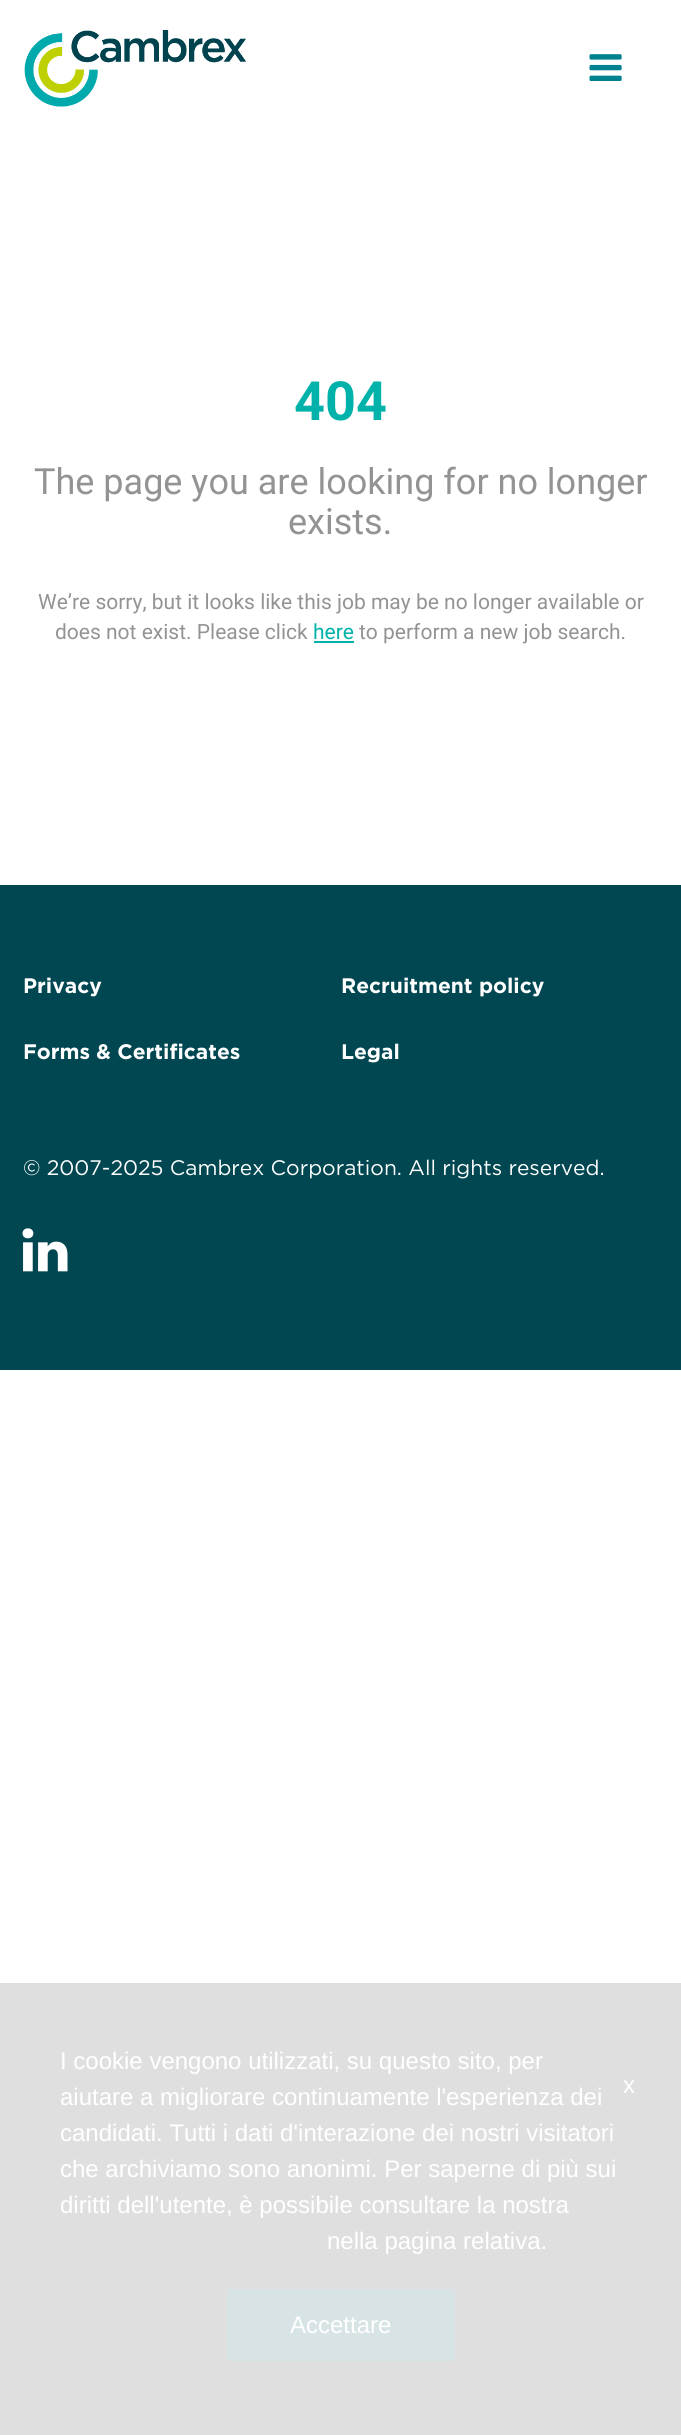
#include <cairo/cairo.h>
#include <math.h>
#include <stddef.h>


static void draw_image(cairo_t *cr, const char *path, double x, double y, double w, double h) {
  cairo_surface_t *image = cairo_image_surface_create_from_png(path);
  cairo_save(cr);
  cairo_set_source_surface(cr, image, x, y);
  cairo_rectangle(cr, x, y, w, h);
  cairo_fill(cr);
  cairo_restore(cr);
  cairo_surface_destroy(image);
}

static void draw(cairo_t *cr) {
  cairo_set_source_rgb(cr, 1, 1, 1);
  cairo_paint(cr);
  draw_image(cr, "images/1.png", 24, 30, 222, 77);
  draw_image(cr, "images/2.png", 589, 54, 33, 27);
  cairo_set_source_rgb(cr, 0, 178 / 255.0, 169 / 255.0);
  cairo_rectangle(cr, 314, 641, 40, 2);
  cairo_fill(cr);
  cairo_set_source_rgb(cr, 0, 71 / 255.0, 81 / 255.0);
  cairo_rectangle(cr, 0, 885, 681, 485);
  cairo_fill(cr);
  draw_image(cr, "images/3.png", 22, 1228, 46, 44);
  cairo_set_source_rgb(cr, 223 / 255.0, 223 / 255.0, 223 / 255.0);
  cairo_rectangle(cr, 0, 1983, 681, 452);
  cairo_fill(cr);
  cairo_set_source_rgb(cr, 215 / 255.0, 227 / 255.0, 229 / 255.0);
  cairo_rectangle(cr, 227, 2289, 228, 72);
  cairo_fill(cr);
  cairo_select_font_face(cr, "Roboto", CAIRO_FONT_SLANT_NORMAL, CAIRO_FONT_WEIGHT_BOLD);
  cairo_set_font_size(cr, 54);
  cairo_set_source_rgb(cr, 0, 178 / 255.0, 169 / 255.0);
  cairo_move_to(cr, 294, 420);
  cairo_show_text(cr, "404");
  cairo_select_font_face(cr, "Roboto", CAIRO_FONT_SLANT_NORMAL, CAIRO_FONT_WEIGHT_NORMAL);
  cairo_set_font_size(cr, 36);
  cairo_set_source_rgb(cr, 147 / 255.0, 147 / 255.0, 148 / 255.0);
  cairo_move_to(cr, 34, 494);
  cairo_show_text(cr, "The page you are looking for no longer");
  cairo_move_to(cr, 288, 534);
  cairo_show_text(cr, "exists.");
  cairo_set_font_size(cr, 21);
  cairo_move_to(cr, 38, 609);
  cairo_show_text(cr, "We’re sorry, but it looks like this job may be no longer available or");
  cairo_move_to(cr, 55, 639);
  cairo_show_text(cr, "does not exist. Please click");
  cairo_set_source_rgb(cr, 0, 178 / 255.0, 169 / 255.0);
  cairo_move_to(cr, 313, 639);
  cairo_show_text(cr, "here");
  cairo_set_source_rgb(cr, 147 / 255.0, 147 / 255.0, 148 / 255.0);
  cairo_move_to(cr, 359, 639);
  cairo_show_text(cr, "to perform a new job search.");
  cairo_select_font_face(cr, "Gotham", CAIRO_FONT_SLANT_NORMAL, CAIRO_FONT_WEIGHT_BOLD);
  cairo_set_source_rgb(cr, 1, 1, 1);
  cairo_move_to(cr, 23, 993);
  cairo_show_text(cr, "Privacy");
  cairo_move_to(cr, 341, 993);
  cairo_show_text(cr, "Recruitment policy");
  cairo_move_to(cr, 23, 1059);
  cairo_show_text(cr, "Forms & Certificates");
  cairo_move_to(cr, 341, 1059);
  cairo_show_text(cr, "Legal");
  cairo_select_font_face(cr, "Gotham", CAIRO_FONT_SLANT_NORMAL, CAIRO_FONT_WEIGHT_NORMAL);
  cairo_move_to(cr, 23, 1175);
  cairo_show_text(cr, "© 2007-2025 Cambrex Corporation. All rights reserved.");
  cairo_select_font_face(cr, "Liberation Sans", CAIRO_FONT_SLANT_NORMAL, CAIRO_FONT_WEIGHT_NORMAL);
  cairo_set_font_size(cr, 24);
  cairo_move_to(cr, 60, 2069);
  cairo_show_text(cr, "I cookie vengono utilizzati, su questo sito, per");
  cairo_move_to(cr, 60, 2105);
  cairo_show_text(cr, "aiutare a migliorare continuamente l'esperienza dei");
  cairo_move_to(cr, 60, 2141);
  cairo_show_text(cr, "candidati. Tutti i dati d'interazione dei nostri visitatori");
  cairo_move_to(cr, 60, 2177);
  cairo_show_text(cr, "che archiviamo sono anonimi. Per saperne di più sui");
  cairo_move_to(cr, 60, 2213);
  cairo_show_text(cr, "diritti dell'utente, è possibile consultare la nostra");
  cairo_move_to(cr, 327, 2249);
  cairo_show_text(cr, "nella pagina relativa.");
  cairo_move_to(cr, 290, 2333);
  cairo_show_text(cr, "Accettare");
  cairo_move_to(cr, 623, 2093);
  cairo_show_text(cr, "x");
}

int main(void) {
  cairo_surface_t *surface = cairo_image_surface_create(CAIRO_FORMAT_RGB24, 681, 2435);
  cairo_t *cr = cairo_create(surface);
  cairo_font_options_t *options = cairo_font_options_create();
  cairo_font_options_set_hint_metrics(options, CAIRO_HINT_METRICS_OFF);
  cairo_font_options_set_hint_style(options, CAIRO_HINT_STYLE_NONE);
  cairo_set_font_options(cr, options);
  cairo_set_miter_limit(cr, 4);
  draw(cr);
  cairo_surface_write_to_png(surface, "out.png");
  cairo_font_options_destroy(options);
  cairo_destroy(cr);
  cairo_surface_destroy(surface);
  return 0;
}
